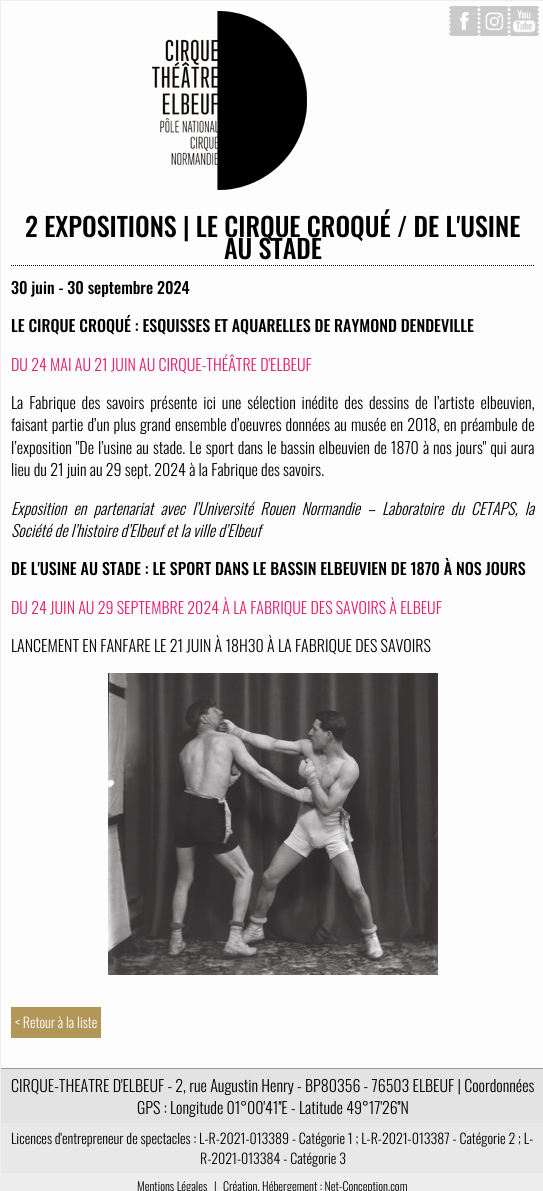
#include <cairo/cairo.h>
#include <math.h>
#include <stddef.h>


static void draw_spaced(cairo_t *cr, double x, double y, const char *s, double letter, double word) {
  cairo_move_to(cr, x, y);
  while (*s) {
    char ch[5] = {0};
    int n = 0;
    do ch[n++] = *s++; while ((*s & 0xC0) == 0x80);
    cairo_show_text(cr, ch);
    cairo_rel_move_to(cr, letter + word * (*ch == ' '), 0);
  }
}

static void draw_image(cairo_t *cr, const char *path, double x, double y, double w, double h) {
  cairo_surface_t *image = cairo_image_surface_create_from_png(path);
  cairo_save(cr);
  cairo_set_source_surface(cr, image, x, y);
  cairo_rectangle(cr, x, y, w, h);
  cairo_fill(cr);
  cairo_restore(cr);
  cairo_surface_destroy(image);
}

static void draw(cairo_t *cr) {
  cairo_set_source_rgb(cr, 253 / 255.0, 253 / 255.0, 253 / 255.0);
  cairo_paint(cr);
  cairo_rectangle(cr, 0.5, 0.5, 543, 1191);
  cairo_set_source_rgb(cr, 238 / 255.0, 238 / 255.0, 238 / 255.0);
  cairo_set_line_width(cr, 1);
  cairo_stroke(cr);
  draw_image(cr, "images/1.png", 152, 11, 155, 179);
  cairo_set_source_rgb(cr, 202 / 255.0, 202 / 255.0, 202 / 255.0);
  cairo_rectangle(cr, 449, 6, 90, 30);
  cairo_fill(cr);
  draw_image(cr, "images/2.png", 449, 6, 30, 30);
  draw_image(cr, "images/3.png", 479, 6, 30, 30);
  draw_image(cr, "images/4.png", 509, 6, 30, 30);
  cairo_new_path(cr);
  cairo_move_to(cr, 11, 265.5);
  cairo_line_to(cr, 534, 265.5);
  cairo_set_source_rgb(cr, 0, 0, 0);
  cairo_set_dash(cr, (double[]){1, 1}, 2, 0);
  cairo_stroke(cr);
  draw_image(cr, "images/5.png", 108, 673, 330, 302);
  cairo_set_source_rgb(cr, 178 / 255.0, 151 / 255.0, 89 / 255.0);
  cairo_rectangle(cr, 11, 1007, 90, 31);
  cairo_fill(cr);
  cairo_set_source_rgb(cr, 153 / 255.0, 153 / 255.0, 153 / 255.0);
  cairo_rectangle(cr, 1, 1068, 542, 1);
  cairo_fill(cr);
  cairo_set_source_rgb(cr, 227 / 255.0, 227 / 255.0, 227 / 255.0);
  cairo_rectangle(cr, 1, 1069, 542, 54);
  cairo_fill(cr);
  cairo_set_source_rgb(cr, 232 / 255.0, 232 / 255.0, 232 / 255.0);
  cairo_rectangle(cr, 1, 1123, 542, 50);
  cairo_fill(cr);
  cairo_set_source_rgb(cr, 237 / 255.0, 237 / 255.0, 237 / 255.0);
  cairo_rectangle(cr, 1, 1173, 542, 18);
  cairo_fill(cr);
  cairo_select_font_face(cr, "Oswald Medium", CAIRO_FONT_SLANT_NORMAL, CAIRO_FONT_WEIGHT_NORMAL);
  cairo_set_font_size(cr, 26);
  cairo_set_source_rgb(cr, 0, 0, 0);
  cairo_move_to(cr, 25, 237);
  cairo_show_text(cr, "2 EXPOSITIONS | LE CIRQUE CROQUÉ / DE L'USINE");
  cairo_move_to(cr, 224, 259);
  cairo_show_text(cr, "AU STADE");
  cairo_set_font_size(cr, 16);
  cairo_move_to(cr, 11, 294);
  cairo_show_text(cr, "30 juin - 30 septembre 2024");
  cairo_move_to(cr, 11, 332);
  cairo_show_text(cr, "LE CIRQUE CROQUÉ : ESQUISSES ET AQUARELLES DE RAYMOND DENDEVILLE");
  cairo_select_font_face(cr, "Oswald Light", CAIRO_FONT_SLANT_NORMAL, CAIRO_FONT_WEIGHT_NORMAL);
  cairo_set_source_rgb(cr, 224 / 255.0, 29 / 255.0, 106 / 255.0);
  cairo_move_to(cr, 11, 371);
  cairo_show_text(cr, "DU 24 MAI AU 21 JUIN AU CIRQUE-THÉÂTRE D'ELBEUF");
  cairo_set_source_rgb(cr, 0, 0, 0);
  draw_spaced(cr, 11, 409, "La Fabrique des savoirs présente ici une sélection inédite des dessins de l’artiste elbeuvien,", 0, 2.6);
  draw_spaced(cr, 11, 431, "faisant partie d’un plus grand ensemble d’oeuvres données au musée en 2018, en préambule de", 0, 0.75);
  draw_spaced(cr, 11, 454, "l’exposition \"De l’usine au stade. Le sport dans le bassin elbeuvien de 1870 à nos jours\" qui aura", 0, 0.75);
  cairo_move_to(cr, 11, 476);
  cairo_show_text(cr, "lieu du 21 juin au 29 sept. 2024 à la Fabrique des savoirs.");
  cairo_select_font_face(cr, "Oswald Light", CAIRO_FONT_SLANT_ITALIC, CAIRO_FONT_WEIGHT_NORMAL);
  draw_spaced(cr, 11, 515, "Exposition en partenariat avec l’Université Rouen Normandie – Laboratoire du CETAPS, la", 0, 3.9);
  cairo_move_to(cr, 11, 537);
  cairo_show_text(cr, "Société de l’histoire d’Elbeuf et la ville d’Elbeuf");
  cairo_select_font_face(cr, "Oswald Medium", CAIRO_FONT_SLANT_NORMAL, CAIRO_FONT_WEIGHT_NORMAL);
  cairo_move_to(cr, 11, 575);
  cairo_show_text(cr, "DE L'USINE AU STADE : LE SPORT DANS LE BASSIN ELBEUVIEN DE 1870 À NOS JOURS");
  cairo_select_font_face(cr, "Oswald Light", CAIRO_FONT_SLANT_NORMAL, CAIRO_FONT_WEIGHT_NORMAL);
  cairo_set_source_rgb(cr, 224 / 255.0, 29 / 255.0, 106 / 255.0);
  cairo_move_to(cr, 11, 614);
  cairo_show_text(cr, "DU 24 JUIN AU 29 SEPTEMBRE 2024 À LA FABRIQUE DES SAVOIRS À ELBEUF");
  cairo_set_source_rgb(cr, 0, 0, 0);
  cairo_move_to(cr, 11, 652);
  cairo_show_text(cr, "LANCEMENT EN FANFARE LE 21 JUIN À 18H30 À LA FABRIQUE DES SAVOIRS");
  cairo_set_font_size(cr, 14);
  cairo_set_source_rgb(cr, 1, 1, 1);
  cairo_move_to(cr, 15, 1028);
  cairo_show_text(cr, "< Retour à la liste");
  cairo_set_font_size(cr, 16);
  cairo_set_source_rgb(cr, 0, 0, 0);
  cairo_move_to(cr, 11, 1092);
  cairo_show_text(cr, "CIRQUE-THEATRE D'ELBEUF - 2, rue Augustin Henry - BP80356 - 76503 ELBEUF | Coordonnées");
  cairo_move_to(cr, 137, 1114);
  cairo_show_text(cr, "GPS : Longitude 01°00'41''E - Latitude 49°17'26''N");
  cairo_set_font_size(cr, 14);
  cairo_move_to(cr, 11, 1144);
  cairo_show_text(cr, "Licences d'entrepreneur de spectacles : L-R-2021-013389 - Catégorie 1 ; L-R-2021-013387 - Catégorie 2 ; L-");
  cairo_move_to(cr, 200, 1164);
  cairo_show_text(cr, "R-2021-013384 - Catégorie 3");
  cairo_set_font_size(cr, 12);
  cairo_move_to(cr, 137, 1191);
  cairo_show_text(cr, "Mentions Légales");
  cairo_move_to(cr, 214, 1191);
  cairo_show_text(cr, "|");
  cairo_move_to(cr, 223, 1191);
  cairo_show_text(cr, "Création, Hébergement : Net-Conception.com");
}

int main(void) {
  cairo_surface_t *surface = cairo_image_surface_create(CAIRO_FORMAT_RGB24, 543, 1191);
  cairo_t *cr = cairo_create(surface);
  cairo_font_options_t *options = cairo_font_options_create();
  cairo_font_options_set_hint_metrics(options, CAIRO_HINT_METRICS_OFF);
  cairo_font_options_set_hint_style(options, CAIRO_HINT_STYLE_NONE);
  cairo_set_font_options(cr, options);
  cairo_set_miter_limit(cr, 4);
  draw(cr);
  cairo_surface_write_to_png(surface, "out.png");
  cairo_font_options_destroy(options);
  cairo_destroy(cr);
  cairo_surface_destroy(surface);
  return 0;
}
